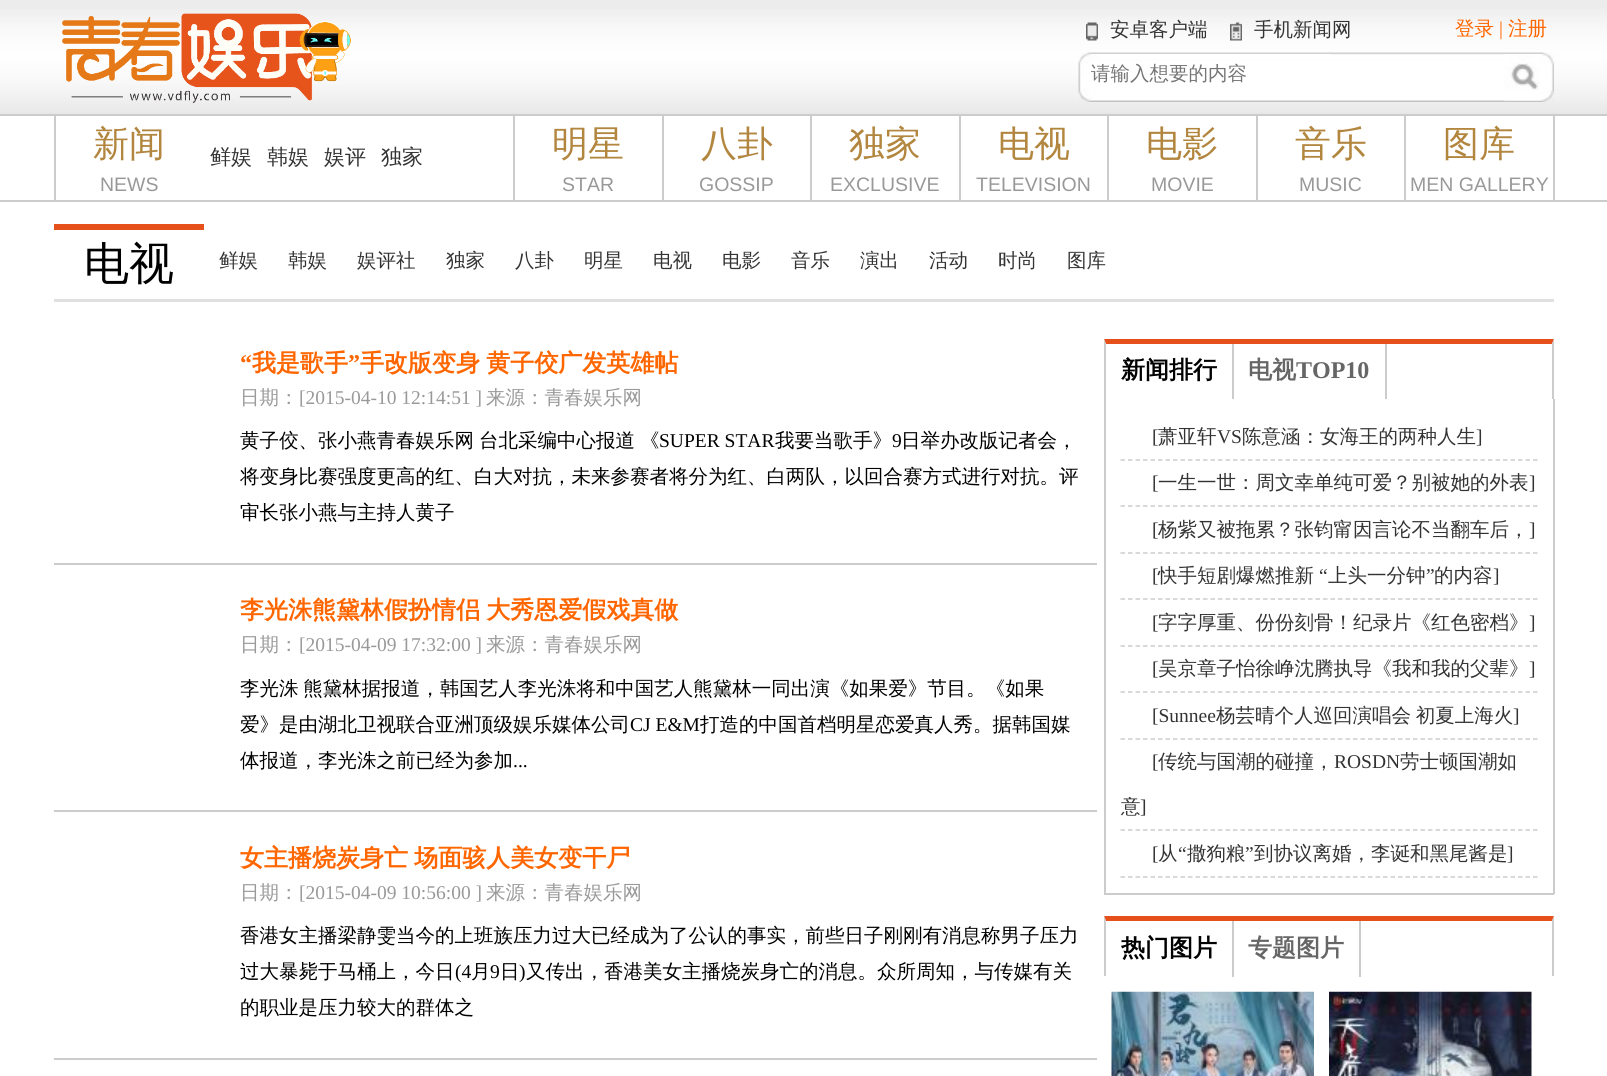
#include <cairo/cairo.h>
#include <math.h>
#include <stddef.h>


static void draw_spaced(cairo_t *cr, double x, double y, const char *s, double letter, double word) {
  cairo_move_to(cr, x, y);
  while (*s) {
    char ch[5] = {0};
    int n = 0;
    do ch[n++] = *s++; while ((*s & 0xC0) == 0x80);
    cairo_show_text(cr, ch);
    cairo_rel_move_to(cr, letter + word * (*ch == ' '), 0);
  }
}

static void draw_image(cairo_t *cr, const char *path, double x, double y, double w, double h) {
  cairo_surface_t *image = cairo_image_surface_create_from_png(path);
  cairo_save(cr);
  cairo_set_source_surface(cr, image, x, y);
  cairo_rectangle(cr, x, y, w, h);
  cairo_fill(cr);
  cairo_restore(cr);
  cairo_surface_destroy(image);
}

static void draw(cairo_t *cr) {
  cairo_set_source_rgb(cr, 1, 1, 1);
  cairo_paint(cr);
  draw_image(cr, "images/1.png", 0, 0, 1607, 114);
  cairo_set_source_rgb(cr, 204 / 255.0, 204 / 255.0, 204 / 255.0);
  cairo_rectangle(cr, 0, 114, 1607, 2);
  cairo_fill(cr);
  draw_image(cr, "images/2.png", 62, 13, 289, 91);
  draw_image(cr, "images/3.png", 1086, 22, 12, 19);
  draw_image(cr, "images/4.png", 1230, 22, 12, 19);
  draw_image(cr, "images/5.png", 1078, 52, 476, 50);
  cairo_set_source_rgb(cr, 1, 1, 1);
  cairo_rectangle(cr, 1091, 54, 240, 1);
  cairo_fill(cr);
  draw_image(cr, "images/6.png", 1504, 54, 38, 47);
  cairo_set_source_rgb(cr, 204 / 255.0, 204 / 255.0, 204 / 255.0);
  cairo_rectangle(cr, 0, 200, 1607, 2);
  cairo_fill(cr);
  cairo_rectangle(cr, 1553, 116, 2, 84);
  cairo_fill(cr);
  cairo_rectangle(cr, 54, 116, 2, 84);
  cairo_fill(cr);
  cairo_rectangle(cr, 513, 116, 2, 84);
  cairo_fill(cr);
  cairo_rectangle(cr, 662, 116, 2, 84);
  cairo_fill(cr);
  cairo_rectangle(cr, 810, 116, 2, 84);
  cairo_fill(cr);
  cairo_rectangle(cr, 959, 116, 2, 84);
  cairo_fill(cr);
  cairo_rectangle(cr, 1107, 116, 2, 84);
  cairo_fill(cr);
  cairo_rectangle(cr, 1256, 116, 2, 84);
  cairo_fill(cr);
  cairo_rectangle(cr, 1404, 116, 2, 84);
  cairo_fill(cr);
  cairo_set_source_rgb(cr, 224 / 255.0, 224 / 255.0, 224 / 255.0);
  cairo_rectangle(cr, 54, 299, 1500, 3);
  cairo_fill(cr);
  cairo_set_source_rgb(cr, 230 / 255.0, 80 / 255.0, 27 / 255.0);
  cairo_rectangle(cr, 54, 224, 150, 6);
  cairo_fill(cr);
  cairo_set_source_rgb(cr, 204 / 255.0, 204 / 255.0, 204 / 255.0);
  cairo_rectangle(cr, 54, 563, 1043, 2);
  cairo_fill(cr);
  cairo_rectangle(cr, 54, 810, 1043, 2);
  cairo_fill(cr);
  cairo_rectangle(cr, 54, 1058, 1043, 2);
  cairo_fill(cr);
  cairo_set_source_rgb(cr, 230 / 255.0, 80 / 255.0, 27 / 255.0);
  cairo_new_path(cr);
  cairo_move_to(cr, 1104, 339);
  cairo_line_to(cr, 1554, 339);
  cairo_line_to(cr, 1552, 344);
  cairo_line_to(cr, 1106, 344);
  cairo_close_path(cr);
  cairo_fill(cr);
  cairo_set_source_rgb(cr, 204 / 255.0, 204 / 255.0, 204 / 255.0);
  cairo_new_path(cr);
  cairo_move_to(cr, 1554, 339);
  cairo_line_to(cr, 1554, 399);
  cairo_line_to(cr, 1552, 399);
  cairo_line_to(cr, 1552, 344);
  cairo_close_path(cr);
  cairo_fill(cr);
  cairo_new_path(cr);
  cairo_move_to(cr, 1104, 399);
  cairo_line_to(cr, 1104, 339);
  cairo_line_to(cr, 1106, 344);
  cairo_line_to(cr, 1106, 399);
  cairo_close_path(cr);
  cairo_fill(cr);
  cairo_rectangle(cr, 1232, 344, 2, 55);
  cairo_fill(cr);
  cairo_rectangle(cr, 1385, 344, 2, 55);
  cairo_fill(cr);
  cairo_rectangle(cr, 1553, 399, 2, 495);
  cairo_fill(cr);
  cairo_rectangle(cr, 1104, 893, 450, 2);
  cairo_fill(cr);
  cairo_rectangle(cr, 1104, 399, 2, 495);
  cairo_fill(cr);
  cairo_new_path(cr);
  cairo_move_to(cr, 1120.5, 460);
  cairo_line_to(cr, 1537.5, 460);
  cairo_set_line_width(cr, 1.5);
  cairo_set_dash(cr, (double[]){4.5, 3}, 2, 0);
  cairo_stroke(cr);
  cairo_new_path(cr);
  cairo_move_to(cr, 1120.5, 506);
  cairo_line_to(cr, 1537.5, 506);
  cairo_stroke(cr);
  cairo_new_path(cr);
  cairo_move_to(cr, 1120.5, 553);
  cairo_line_to(cr, 1537.5, 553);
  cairo_stroke(cr);
  cairo_new_path(cr);
  cairo_move_to(cr, 1120.5, 599);
  cairo_line_to(cr, 1537.5, 599);
  cairo_stroke(cr);
  cairo_new_path(cr);
  cairo_move_to(cr, 1120.5, 646);
  cairo_line_to(cr, 1537.5, 646);
  cairo_stroke(cr);
  cairo_new_path(cr);
  cairo_move_to(cr, 1120.5, 692);
  cairo_line_to(cr, 1537.5, 692);
  cairo_stroke(cr);
  cairo_new_path(cr);
  cairo_move_to(cr, 1120.5, 739);
  cairo_line_to(cr, 1537.5, 739);
  cairo_stroke(cr);
  cairo_new_path(cr);
  cairo_move_to(cr, 1120.5, 830);
  cairo_line_to(cr, 1537.5, 830);
  cairo_stroke(cr);
  cairo_new_path(cr);
  cairo_move_to(cr, 1120.5, 877);
  cairo_line_to(cr, 1537.5, 877);
  cairo_stroke(cr);
  cairo_set_source_rgb(cr, 230 / 255.0, 80 / 255.0, 27 / 255.0);
  cairo_new_path(cr);
  cairo_move_to(cr, 1104, 916);
  cairo_line_to(cr, 1554, 916);
  cairo_line_to(cr, 1552, 921);
  cairo_line_to(cr, 1106, 921);
  cairo_close_path(cr);
  cairo_fill(cr);
  cairo_set_source_rgb(cr, 204 / 255.0, 204 / 255.0, 204 / 255.0);
  cairo_new_path(cr);
  cairo_move_to(cr, 1554, 916);
  cairo_line_to(cr, 1554, 976);
  cairo_line_to(cr, 1552, 976);
  cairo_line_to(cr, 1552, 921);
  cairo_close_path(cr);
  cairo_fill(cr);
  cairo_new_path(cr);
  cairo_move_to(cr, 1104, 976);
  cairo_line_to(cr, 1104, 916);
  cairo_line_to(cr, 1106, 921);
  cairo_line_to(cr, 1106, 976);
  cairo_close_path(cr);
  cairo_fill(cr);
  cairo_rectangle(cr, 1232, 921, 2, 56);
  cairo_fill(cr);
  cairo_rectangle(cr, 1359, 921, 2, 56);
  cairo_fill(cr);
  draw_image(cr, "images/7.png", 1111, 991, 203, 85);
  draw_image(cr, "images/8.png", 1329, 991, 203, 85);
  cairo_select_font_face(cr, "WenQuanYi Zen Hei Medium", CAIRO_FONT_SLANT_NORMAL, CAIRO_FONT_WEIGHT_NORMAL);
  cairo_set_font_size(cr, 19.5);
  cairo_set_source_rgb(cr, 51 / 255.0, 51 / 255.0, 51 / 255.0);
  cairo_move_to(cr, 1110, 36);
  cairo_show_text(cr, "安卓客户端");
  cairo_move_to(cr, 1254, 36);
  cairo_show_text(cr, "手机新闻网");
  cairo_set_source_rgb(cr, 1, 102 / 255.0, 0);
  cairo_move_to(cr, 1455, 35);
  cairo_show_text(cr, "登录");
  cairo_select_font_face(cr, "Liberation Serif", CAIRO_FONT_SLANT_NORMAL, CAIRO_FONT_WEIGHT_NORMAL);
  cairo_move_to(cr, 1499, 35);
  cairo_show_text(cr, "|");
  cairo_select_font_face(cr, "WenQuanYi Zen Hei Medium", CAIRO_FONT_SLANT_NORMAL, CAIRO_FONT_WEIGHT_NORMAL);
  cairo_move_to(cr, 1508, 35);
  cairo_show_text(cr, "注册");
  cairo_set_source_rgb(cr, 117 / 255.0, 117 / 255.0, 117 / 255.0);
  cairo_move_to(cr, 1091, 80);
  cairo_show_text(cr, "请输入想要的内容");
  cairo_set_font_size(cr, 36);
  cairo_set_source_rgb(cr, 178 / 255.0, 134 / 255.0, 62 / 255.0);
  cairo_move_to(cr, 93, 156);
  cairo_show_text(cr, "新闻");
  cairo_select_font_face(cr, "Liberation Sans", CAIRO_FONT_SLANT_NORMAL, CAIRO_FONT_WEIGHT_NORMAL);
  cairo_set_font_size(cr, 19.5);
  cairo_set_source_rgb(cr, 153 / 255.0, 153 / 255.0, 153 / 255.0);
  cairo_move_to(cr, 100, 191);
  cairo_show_text(cr, "NEWS");
  cairo_select_font_face(cr, "WenQuanYi Zen Hei Medium", CAIRO_FONT_SLANT_NORMAL, CAIRO_FONT_WEIGHT_NORMAL);
  cairo_set_font_size(cr, 21);
  cairo_set_source_rgb(cr, 51 / 255.0, 51 / 255.0, 51 / 255.0);
  cairo_move_to(cr, 210, 164);
  cairo_show_text(cr, "鲜娱");
  cairo_move_to(cr, 267, 164);
  cairo_show_text(cr, "韩娱");
  cairo_move_to(cr, 324, 164);
  cairo_show_text(cr, "娱评");
  cairo_move_to(cr, 381, 164);
  cairo_show_text(cr, "独家");
  cairo_set_font_size(cr, 36);
  cairo_set_source_rgb(cr, 178 / 255.0, 134 / 255.0, 62 / 255.0);
  cairo_move_to(cr, 552, 156);
  cairo_show_text(cr, "明星");
  cairo_select_font_face(cr, "Liberation Sans", CAIRO_FONT_SLANT_NORMAL, CAIRO_FONT_WEIGHT_NORMAL);
  cairo_set_font_size(cr, 19.5);
  cairo_set_source_rgb(cr, 153 / 255.0, 153 / 255.0, 153 / 255.0);
  cairo_move_to(cr, 562, 191);
  cairo_show_text(cr, "STAR");
  cairo_select_font_face(cr, "WenQuanYi Zen Hei Medium", CAIRO_FONT_SLANT_NORMAL, CAIRO_FONT_WEIGHT_NORMAL);
  cairo_set_font_size(cr, 36);
  cairo_set_source_rgb(cr, 178 / 255.0, 134 / 255.0, 62 / 255.0);
  cairo_move_to(cr, 701, 156);
  cairo_show_text(cr, "八卦");
  cairo_select_font_face(cr, "Liberation Sans", CAIRO_FONT_SLANT_NORMAL, CAIRO_FONT_WEIGHT_NORMAL);
  cairo_set_font_size(cr, 19.5);
  cairo_set_source_rgb(cr, 153 / 255.0, 153 / 255.0, 153 / 255.0);
  cairo_move_to(cr, 699, 191);
  cairo_show_text(cr, "GOSSIP");
  cairo_select_font_face(cr, "WenQuanYi Zen Hei Medium", CAIRO_FONT_SLANT_NORMAL, CAIRO_FONT_WEIGHT_NORMAL);
  cairo_set_font_size(cr, 36);
  cairo_set_source_rgb(cr, 178 / 255.0, 134 / 255.0, 62 / 255.0);
  cairo_move_to(cr, 849, 156);
  cairo_show_text(cr, "独家");
  cairo_select_font_face(cr, "Liberation Sans", CAIRO_FONT_SLANT_NORMAL, CAIRO_FONT_WEIGHT_NORMAL);
  cairo_set_font_size(cr, 19.5);
  cairo_set_source_rgb(cr, 153 / 255.0, 153 / 255.0, 153 / 255.0);
  cairo_move_to(cr, 830, 191);
  cairo_show_text(cr, "EXCLUSIVE");
  cairo_select_font_face(cr, "WenQuanYi Zen Hei Medium", CAIRO_FONT_SLANT_NORMAL, CAIRO_FONT_WEIGHT_NORMAL);
  cairo_set_font_size(cr, 36);
  cairo_set_source_rgb(cr, 178 / 255.0, 134 / 255.0, 62 / 255.0);
  cairo_move_to(cr, 998, 156);
  cairo_show_text(cr, "电视");
  cairo_select_font_face(cr, "Liberation Sans", CAIRO_FONT_SLANT_NORMAL, CAIRO_FONT_WEIGHT_NORMAL);
  cairo_set_font_size(cr, 19.5);
  cairo_set_source_rgb(cr, 153 / 255.0, 153 / 255.0, 153 / 255.0);
  cairo_move_to(cr, 976, 191);
  cairo_show_text(cr, "TELEVISION");
  cairo_select_font_face(cr, "WenQuanYi Zen Hei Medium", CAIRO_FONT_SLANT_NORMAL, CAIRO_FONT_WEIGHT_NORMAL);
  cairo_set_font_size(cr, 36);
  cairo_set_source_rgb(cr, 178 / 255.0, 134 / 255.0, 62 / 255.0);
  cairo_move_to(cr, 1146, 156);
  cairo_show_text(cr, "电影");
  cairo_select_font_face(cr, "Liberation Sans", CAIRO_FONT_SLANT_NORMAL, CAIRO_FONT_WEIGHT_NORMAL);
  cairo_set_font_size(cr, 19.5);
  cairo_set_source_rgb(cr, 153 / 255.0, 153 / 255.0, 153 / 255.0);
  cairo_move_to(cr, 1151, 191);
  cairo_show_text(cr, "MOVIE");
  cairo_select_font_face(cr, "WenQuanYi Zen Hei Medium", CAIRO_FONT_SLANT_NORMAL, CAIRO_FONT_WEIGHT_NORMAL);
  cairo_set_font_size(cr, 36);
  cairo_set_source_rgb(cr, 178 / 255.0, 134 / 255.0, 62 / 255.0);
  cairo_move_to(cr, 1295, 156);
  cairo_show_text(cr, "音乐");
  cairo_select_font_face(cr, "Liberation Sans", CAIRO_FONT_SLANT_NORMAL, CAIRO_FONT_WEIGHT_NORMAL);
  cairo_set_font_size(cr, 19.5);
  cairo_set_source_rgb(cr, 153 / 255.0, 153 / 255.0, 153 / 255.0);
  cairo_move_to(cr, 1299, 191);
  cairo_show_text(cr, "MUSIC");
  cairo_select_font_face(cr, "WenQuanYi Zen Hei Medium", CAIRO_FONT_SLANT_NORMAL, CAIRO_FONT_WEIGHT_NORMAL);
  cairo_set_font_size(cr, 36);
  cairo_set_source_rgb(cr, 178 / 255.0, 134 / 255.0, 62 / 255.0);
  cairo_move_to(cr, 1443, 156);
  cairo_show_text(cr, "图库");
  cairo_select_font_face(cr, "Liberation Sans", CAIRO_FONT_SLANT_NORMAL, CAIRO_FONT_WEIGHT_NORMAL);
  cairo_set_font_size(cr, 19.5);
  cairo_set_source_rgb(cr, 153 / 255.0, 153 / 255.0, 153 / 255.0);
  cairo_move_to(cr, 1410, 191);
  cairo_show_text(cr, "MEN GALLERY");
  cairo_select_font_face(cr, "WenQuanYi Zen Hei Medium", CAIRO_FONT_SLANT_NORMAL, CAIRO_FONT_WEIGHT_NORMAL);
  cairo_set_font_size(cr, 45);
  cairo_set_source_rgb(cr, 0, 0, 0);
  cairo_move_to(cr, 84, 279);
  cairo_show_text(cr, "电视");
  cairo_set_font_size(cr, 19.5);
  cairo_set_source_rgb(cr, 51 / 255.0, 51 / 255.0, 51 / 255.0);
  cairo_move_to(cr, 219, 267);
  cairo_show_text(cr, "鲜娱");
  cairo_move_to(cr, 288, 267);
  cairo_show_text(cr, "韩娱");
  cairo_move_to(cr, 357, 267);
  cairo_show_text(cr, "娱评社");
  cairo_move_to(cr, 446, 267);
  cairo_show_text(cr, "独家");
  cairo_move_to(cr, 515, 267);
  cairo_show_text(cr, "八卦");
  cairo_move_to(cr, 584, 267);
  cairo_show_text(cr, "明星");
  cairo_move_to(cr, 653, 267);
  cairo_show_text(cr, "电视");
  cairo_move_to(cr, 722, 267);
  cairo_show_text(cr, "电影");
  cairo_move_to(cr, 791, 267);
  cairo_show_text(cr, "音乐");
  cairo_move_to(cr, 860, 267);
  cairo_show_text(cr, "演出");
  cairo_move_to(cr, 929, 267);
  cairo_show_text(cr, "活动");
  cairo_move_to(cr, 998, 267);
  cairo_show_text(cr, "时尚");
  cairo_move_to(cr, 1067, 267);
  cairo_show_text(cr, "图库");
  cairo_select_font_face(cr, "Liberation Serif", CAIRO_FONT_SLANT_NORMAL, CAIRO_FONT_WEIGHT_BOLD);
  cairo_set_font_size(cr, 24);
  cairo_set_source_rgb(cr, 1, 102 / 255.0, 0);
  cairo_move_to(cr, 240, 371);
  cairo_show_text(cr, "“");
  cairo_select_font_face(cr, "WenQuanYi Zen Hei", CAIRO_FONT_SLANT_NORMAL, CAIRO_FONT_WEIGHT_BOLD);
  cairo_move_to(cr, 252, 371);
  cairo_show_text(cr, "我是歌手");
  cairo_select_font_face(cr, "Liberation Serif", CAIRO_FONT_SLANT_NORMAL, CAIRO_FONT_WEIGHT_BOLD);
  cairo_move_to(cr, 348, 371);
  cairo_show_text(cr, "”");
  cairo_select_font_face(cr, "WenQuanYi Zen Hei", CAIRO_FONT_SLANT_NORMAL, CAIRO_FONT_WEIGHT_BOLD);
  draw_spaced(cr, 360, 371, "手改版变身 黄子佼广发英雄帖", 0, -1);
  cairo_select_font_face(cr, "WenQuanYi Zen Hei Medium", CAIRO_FONT_SLANT_NORMAL, CAIRO_FONT_WEIGHT_NORMAL);
  cairo_set_font_size(cr, 19.5);
  cairo_set_source_rgb(cr, 153 / 255.0, 153 / 255.0, 153 / 255.0);
  cairo_move_to(cr, 240, 404);
  cairo_show_text(cr, "日期：");
  cairo_select_font_face(cr, "Liberation Serif", CAIRO_FONT_SLANT_NORMAL, CAIRO_FONT_WEIGHT_NORMAL);
  cairo_move_to(cr, 299, 404);
  cairo_show_text(cr, "[2015-04-10 12:14:51 ]");
  cairo_select_font_face(cr, "WenQuanYi Zen Hei Medium", CAIRO_FONT_SLANT_NORMAL, CAIRO_FONT_WEIGHT_NORMAL);
  cairo_move_to(cr, 486, 404);
  cairo_show_text(cr, "来源：青春娱乐网");
  cairo_set_source_rgb(cr, 0, 0, 0);
  cairo_move_to(cr, 240, 447);
  cairo_show_text(cr, "黄子佼、张小燕青春娱乐网");
  cairo_move_to(cr, 479, 447);
  cairo_show_text(cr, "台北采编中心报道");
  cairo_move_to(cr, 640, 447);
  cairo_show_text(cr, "《");
  cairo_select_font_face(cr, "Liberation Serif", CAIRO_FONT_SLANT_NORMAL, CAIRO_FONT_WEIGHT_NORMAL);
  cairo_move_to(cr, 659, 447);
  cairo_show_text(cr, "SUPER STAR");
  cairo_select_font_face(cr, "WenQuanYi Zen Hei Medium", CAIRO_FONT_SLANT_NORMAL, CAIRO_FONT_WEIGHT_NORMAL);
  cairo_move_to(cr, 775, 447);
  cairo_show_text(cr, "我要当歌手》");
  cairo_select_font_face(cr, "Liberation Serif", CAIRO_FONT_SLANT_NORMAL, CAIRO_FONT_WEIGHT_NORMAL);
  cairo_move_to(cr, 892, 447);
  cairo_show_text(cr, "9");
  cairo_select_font_face(cr, "WenQuanYi Zen Hei Medium", CAIRO_FONT_SLANT_NORMAL, CAIRO_FONT_WEIGHT_NORMAL);
  cairo_move_to(cr, 901, 447);
  cairo_show_text(cr, "日举办改版记者会，");
  cairo_move_to(cr, 240, 483);
  cairo_show_text(cr, "将变身比赛强度更高的红、白大对抗，未来参赛者将分为红、白两队，以回合赛方式进行对抗。评");
  cairo_move_to(cr, 240, 519);
  cairo_show_text(cr, "审长张小燕与主持人黄子");
  cairo_select_font_face(cr, "WenQuanYi Zen Hei", CAIRO_FONT_SLANT_NORMAL, CAIRO_FONT_WEIGHT_BOLD);
  cairo_set_font_size(cr, 24);
  cairo_set_source_rgb(cr, 1, 102 / 255.0, 0);
  draw_spaced(cr, 240, 618, "李光洙熊黛林假扮情侣 大秀恩爱假戏真做", 0, -1);
  cairo_select_font_face(cr, "WenQuanYi Zen Hei Medium", CAIRO_FONT_SLANT_NORMAL, CAIRO_FONT_WEIGHT_NORMAL);
  cairo_set_font_size(cr, 19.5);
  cairo_set_source_rgb(cr, 153 / 255.0, 153 / 255.0, 153 / 255.0);
  cairo_move_to(cr, 240, 651);
  cairo_show_text(cr, "日期：");
  cairo_select_font_face(cr, "Liberation Serif", CAIRO_FONT_SLANT_NORMAL, CAIRO_FONT_WEIGHT_NORMAL);
  cairo_move_to(cr, 299, 651);
  cairo_show_text(cr, "[2015-04-09 17:32:00 ]");
  cairo_select_font_face(cr, "WenQuanYi Zen Hei Medium", CAIRO_FONT_SLANT_NORMAL, CAIRO_FONT_WEIGHT_NORMAL);
  cairo_move_to(cr, 486, 651);
  cairo_show_text(cr, "来源：青春娱乐网");
  cairo_set_source_rgb(cr, 0, 0, 0);
  draw_spaced(cr, 240, 695, "李光洙 熊黛林据报道，韩国艺人李光洙将和中国艺人熊黛林一同出演《如果爱》节目。《如果", 0, -1);
  cairo_move_to(cr, 240, 731);
  cairo_show_text(cr, "爱》是由湖北卫视联合亚洲顶级娱乐媒体公司");
  cairo_select_font_face(cr, "Liberation Serif", CAIRO_FONT_SLANT_NORMAL, CAIRO_FONT_WEIGHT_NORMAL);
  cairo_move_to(cr, 630, 731);
  cairo_show_text(cr, "CJ E&M");
  cairo_select_font_face(cr, "WenQuanYi Zen Hei Medium", CAIRO_FONT_SLANT_NORMAL, CAIRO_FONT_WEIGHT_NORMAL);
  cairo_move_to(cr, 700, 731);
  cairo_show_text(cr, "打造的中国首档明星恋爱真人秀。据韩国媒");
  cairo_move_to(cr, 240, 767);
  cairo_show_text(cr, "体报道，李光洙之前已经为参加");
  cairo_select_font_face(cr, "Liberation Serif", CAIRO_FONT_SLANT_NORMAL, CAIRO_FONT_WEIGHT_NORMAL);
  cairo_move_to(cr, 513, 767);
  cairo_show_text(cr, "...");
  cairo_select_font_face(cr, "WenQuanYi Zen Hei", CAIRO_FONT_SLANT_NORMAL, CAIRO_FONT_WEIGHT_BOLD);
  cairo_set_font_size(cr, 24);
  cairo_set_source_rgb(cr, 1, 102 / 255.0, 0);
  draw_spaced(cr, 240, 866, "女主播烧炭身亡 场面骇人美女变干尸", 0, -1);
  cairo_select_font_face(cr, "WenQuanYi Zen Hei Medium", CAIRO_FONT_SLANT_NORMAL, CAIRO_FONT_WEIGHT_NORMAL);
  cairo_set_font_size(cr, 19.5);
  cairo_set_source_rgb(cr, 153 / 255.0, 153 / 255.0, 153 / 255.0);
  cairo_move_to(cr, 240, 899);
  cairo_show_text(cr, "日期：");
  cairo_select_font_face(cr, "Liberation Serif", CAIRO_FONT_SLANT_NORMAL, CAIRO_FONT_WEIGHT_NORMAL);
  cairo_move_to(cr, 299, 899);
  cairo_show_text(cr, "[2015-04-09 10:56:00 ]");
  cairo_select_font_face(cr, "WenQuanYi Zen Hei Medium", CAIRO_FONT_SLANT_NORMAL, CAIRO_FONT_WEIGHT_NORMAL);
  cairo_move_to(cr, 486, 899);
  cairo_show_text(cr, "来源：青春娱乐网");
  cairo_set_source_rgb(cr, 0, 0, 0);
  cairo_move_to(cr, 240, 942);
  cairo_show_text(cr, "香港女主播梁静雯当今的上班族压力过大已经成为了公认的事实，前些日子刚刚有消息称男子压力");
  cairo_move_to(cr, 240, 978);
  cairo_show_text(cr, "过大暴毙于马桶上，今日");
  cairo_select_font_face(cr, "Liberation Serif", CAIRO_FONT_SLANT_NORMAL, CAIRO_FONT_WEIGHT_NORMAL);
  cairo_move_to(cr, 455, 978);
  cairo_show_text(cr, "(4");
  cairo_select_font_face(cr, "WenQuanYi Zen Hei Medium", CAIRO_FONT_SLANT_NORMAL, CAIRO_FONT_WEIGHT_NORMAL);
  cairo_move_to(cr, 471, 978);
  cairo_show_text(cr, "月");
  cairo_select_font_face(cr, "Liberation Serif", CAIRO_FONT_SLANT_NORMAL, CAIRO_FONT_WEIGHT_NORMAL);
  cairo_move_to(cr, 490, 978);
  cairo_show_text(cr, "9");
  cairo_select_font_face(cr, "WenQuanYi Zen Hei Medium", CAIRO_FONT_SLANT_NORMAL, CAIRO_FONT_WEIGHT_NORMAL);
  cairo_move_to(cr, 500, 978);
  cairo_show_text(cr, "日");
  cairo_select_font_face(cr, "Liberation Serif", CAIRO_FONT_SLANT_NORMAL, CAIRO_FONT_WEIGHT_NORMAL);
  cairo_move_to(cr, 519, 978);
  cairo_show_text(cr, ")");
  cairo_select_font_face(cr, "WenQuanYi Zen Hei Medium", CAIRO_FONT_SLANT_NORMAL, CAIRO_FONT_WEIGHT_NORMAL);
  cairo_move_to(cr, 526, 978);
  cairo_show_text(cr, "又传出，香港美女主播烧炭身亡的消息。众所周知，与传媒有关");
  cairo_move_to(cr, 240, 1014);
  cairo_show_text(cr, "的职业是压力较大的群体之");
  cairo_select_font_face(cr, "WenQuanYi Zen Hei", CAIRO_FONT_SLANT_NORMAL, CAIRO_FONT_WEIGHT_BOLD);
  cairo_set_font_size(cr, 24);
  cairo_move_to(cr, 1121, 378);
  cairo_show_text(cr, "新闻排行");
  cairo_set_source_rgb(cr, 102 / 255.0, 102 / 255.0, 102 / 255.0);
  cairo_move_to(cr, 1248, 378);
  cairo_show_text(cr, "电视");
  cairo_select_font_face(cr, "Liberation Serif", CAIRO_FONT_SLANT_NORMAL, CAIRO_FONT_WEIGHT_BOLD);
  cairo_move_to(cr, 1296, 378);
  cairo_show_text(cr, "TOP10");
  cairo_select_font_face(cr, "Liberation Serif", CAIRO_FONT_SLANT_NORMAL, CAIRO_FONT_WEIGHT_NORMAL);
  cairo_set_font_size(cr, 19.5);
  cairo_set_source_rgb(cr, 51 / 255.0, 51 / 255.0, 51 / 255.0);
  cairo_move_to(cr, 1152, 443);
  cairo_show_text(cr, "[");
  cairo_select_font_face(cr, "WenQuanYi Zen Hei Medium", CAIRO_FONT_SLANT_NORMAL, CAIRO_FONT_WEIGHT_NORMAL);
  cairo_move_to(cr, 1158, 443);
  cairo_show_text(cr, "萧亚轩");
  cairo_select_font_face(cr, "Liberation Serif", CAIRO_FONT_SLANT_NORMAL, CAIRO_FONT_WEIGHT_NORMAL);
  cairo_move_to(cr, 1217, 443);
  cairo_show_text(cr, "VS");
  cairo_select_font_face(cr, "WenQuanYi Zen Hei Medium", CAIRO_FONT_SLANT_NORMAL, CAIRO_FONT_WEIGHT_NORMAL);
  cairo_move_to(cr, 1242, 443);
  cairo_show_text(cr, "陈意涵：女海王的两种人生");
  cairo_select_font_face(cr, "Liberation Serif", CAIRO_FONT_SLANT_NORMAL, CAIRO_FONT_WEIGHT_NORMAL);
  cairo_move_to(cr, 1476, 443);
  cairo_show_text(cr, "]");
  cairo_move_to(cr, 1152, 489);
  cairo_show_text(cr, "[");
  cairo_select_font_face(cr, "WenQuanYi Zen Hei Medium", CAIRO_FONT_SLANT_NORMAL, CAIRO_FONT_WEIGHT_NORMAL);
  cairo_move_to(cr, 1158, 489);
  cairo_show_text(cr, "一生一世：周文幸单纯可爱？别被她的外表");
  cairo_select_font_face(cr, "Liberation Serif", CAIRO_FONT_SLANT_NORMAL, CAIRO_FONT_WEIGHT_NORMAL);
  cairo_move_to(cr, 1529, 489);
  cairo_show_text(cr, "]");
  cairo_move_to(cr, 1152, 536);
  cairo_show_text(cr, "[");
  cairo_select_font_face(cr, "WenQuanYi Zen Hei Medium", CAIRO_FONT_SLANT_NORMAL, CAIRO_FONT_WEIGHT_NORMAL);
  cairo_move_to(cr, 1158, 536);
  cairo_show_text(cr, "杨紫又被拖累？张钧甯因言论不当翻车后，");
  cairo_select_font_face(cr, "Liberation Serif", CAIRO_FONT_SLANT_NORMAL, CAIRO_FONT_WEIGHT_NORMAL);
  cairo_move_to(cr, 1529, 536);
  cairo_show_text(cr, "]");
  cairo_move_to(cr, 1152, 582);
  cairo_show_text(cr, "[");
  cairo_select_font_face(cr, "WenQuanYi Zen Hei Medium", CAIRO_FONT_SLANT_NORMAL, CAIRO_FONT_WEIGHT_NORMAL);
  cairo_move_to(cr, 1158, 582);
  cairo_show_text(cr, "快手短剧爆燃推新");
  cairo_select_font_face(cr, "Liberation Serif", CAIRO_FONT_SLANT_NORMAL, CAIRO_FONT_WEIGHT_NORMAL);
  cairo_move_to(cr, 1319, 582);
  cairo_show_text(cr, "“");
  cairo_select_font_face(cr, "WenQuanYi Zen Hei Medium", CAIRO_FONT_SLANT_NORMAL, CAIRO_FONT_WEIGHT_NORMAL);
  cairo_move_to(cr, 1328, 582);
  cairo_show_text(cr, "上头一分钟");
  cairo_select_font_face(cr, "Liberation Serif", CAIRO_FONT_SLANT_NORMAL, CAIRO_FONT_WEIGHT_NORMAL);
  cairo_move_to(cr, 1426, 582);
  cairo_show_text(cr, "”");
  cairo_select_font_face(cr, "WenQuanYi Zen Hei Medium", CAIRO_FONT_SLANT_NORMAL, CAIRO_FONT_WEIGHT_NORMAL);
  cairo_move_to(cr, 1434, 582);
  cairo_show_text(cr, "的内容");
  cairo_select_font_face(cr, "Liberation Serif", CAIRO_FONT_SLANT_NORMAL, CAIRO_FONT_WEIGHT_NORMAL);
  cairo_move_to(cr, 1493, 582);
  cairo_show_text(cr, "]");
  cairo_move_to(cr, 1152, 629);
  cairo_show_text(cr, "[");
  cairo_select_font_face(cr, "WenQuanYi Zen Hei Medium", CAIRO_FONT_SLANT_NORMAL, CAIRO_FONT_WEIGHT_NORMAL);
  cairo_move_to(cr, 1158, 629);
  cairo_show_text(cr, "字字厚重、份份刻骨！纪录片《红色密档》");
  cairo_select_font_face(cr, "Liberation Serif", CAIRO_FONT_SLANT_NORMAL, CAIRO_FONT_WEIGHT_NORMAL);
  cairo_move_to(cr, 1529, 629);
  cairo_show_text(cr, "]");
  cairo_move_to(cr, 1152, 675);
  cairo_show_text(cr, "[");
  cairo_select_font_face(cr, "WenQuanYi Zen Hei Medium", CAIRO_FONT_SLANT_NORMAL, CAIRO_FONT_WEIGHT_NORMAL);
  cairo_move_to(cr, 1158, 675);
  cairo_show_text(cr, "吴京章子怡徐峥沈腾执导《我和我的父辈》");
  cairo_select_font_face(cr, "Liberation Serif", CAIRO_FONT_SLANT_NORMAL, CAIRO_FONT_WEIGHT_NORMAL);
  cairo_move_to(cr, 1529, 675);
  cairo_show_text(cr, "]");
  cairo_move_to(cr, 1152, 722);
  cairo_show_text(cr, "[Sunnee");
  cairo_select_font_face(cr, "WenQuanYi Zen Hei Medium", CAIRO_FONT_SLANT_NORMAL, CAIRO_FONT_WEIGHT_NORMAL);
  draw_spaced(cr, 1216, 722, "杨芸晴个人巡回演唱会 初夏上海火", 0, -1);
  cairo_select_font_face(cr, "Liberation Serif", CAIRO_FONT_SLANT_NORMAL, CAIRO_FONT_WEIGHT_NORMAL);
  cairo_move_to(cr, 1513, 722);
  cairo_show_text(cr, "]");
  cairo_move_to(cr, 1152, 768);
  cairo_show_text(cr, "[");
  cairo_select_font_face(cr, "WenQuanYi Zen Hei Medium", CAIRO_FONT_SLANT_NORMAL, CAIRO_FONT_WEIGHT_NORMAL);
  cairo_move_to(cr, 1158, 768);
  cairo_show_text(cr, "传统与国潮的碰撞，");
  cairo_select_font_face(cr, "Liberation Serif", CAIRO_FONT_SLANT_NORMAL, CAIRO_FONT_WEIGHT_NORMAL);
  cairo_move_to(cr, 1334, 768);
  cairo_show_text(cr, "ROSDN");
  cairo_select_font_face(cr, "WenQuanYi Zen Hei Medium", CAIRO_FONT_SLANT_NORMAL, CAIRO_FONT_WEIGHT_NORMAL);
  cairo_move_to(cr, 1400, 768);
  cairo_show_text(cr, "劳士顿国潮如");
  cairo_move_to(cr, 1121, 813);
  cairo_show_text(cr, "意");
  cairo_select_font_face(cr, "Liberation Serif", CAIRO_FONT_SLANT_NORMAL, CAIRO_FONT_WEIGHT_NORMAL);
  cairo_move_to(cr, 1140, 813);
  cairo_show_text(cr, "]");
  cairo_move_to(cr, 1152, 860);
  cairo_show_text(cr, "[");
  cairo_select_font_face(cr, "WenQuanYi Zen Hei Medium", CAIRO_FONT_SLANT_NORMAL, CAIRO_FONT_WEIGHT_NORMAL);
  cairo_move_to(cr, 1158, 860);
  cairo_show_text(cr, "从");
  cairo_select_font_face(cr, "Liberation Serif", CAIRO_FONT_SLANT_NORMAL, CAIRO_FONT_WEIGHT_NORMAL);
  cairo_move_to(cr, 1178, 860);
  cairo_show_text(cr, "“");
  cairo_select_font_face(cr, "WenQuanYi Zen Hei Medium", CAIRO_FONT_SLANT_NORMAL, CAIRO_FONT_WEIGHT_NORMAL);
  cairo_move_to(cr, 1187, 860);
  cairo_show_text(cr, "撒狗粮");
  cairo_select_font_face(cr, "Liberation Serif", CAIRO_FONT_SLANT_NORMAL, CAIRO_FONT_WEIGHT_NORMAL);
  cairo_move_to(cr, 1245, 860);
  cairo_show_text(cr, "”");
  cairo_select_font_face(cr, "WenQuanYi Zen Hei Medium", CAIRO_FONT_SLANT_NORMAL, CAIRO_FONT_WEIGHT_NORMAL);
  cairo_move_to(cr, 1254, 860);
  cairo_show_text(cr, "到协议离婚，李诞和黑尾酱是");
  cairo_select_font_face(cr, "Liberation Serif", CAIRO_FONT_SLANT_NORMAL, CAIRO_FONT_WEIGHT_NORMAL);
  cairo_move_to(cr, 1507, 860);
  cairo_show_text(cr, "]");
  cairo_select_font_face(cr, "WenQuanYi Zen Hei", CAIRO_FONT_SLANT_NORMAL, CAIRO_FONT_WEIGHT_BOLD);
  cairo_set_font_size(cr, 24);
  cairo_set_source_rgb(cr, 0, 0, 0);
  cairo_move_to(cr, 1121, 956);
  cairo_show_text(cr, "热门图片");
  cairo_set_source_rgb(cr, 102 / 255.0, 102 / 255.0, 102 / 255.0);
  cairo_move_to(cr, 1248, 956);
  cairo_show_text(cr, "专题图片");
}

int main(void) {
  cairo_surface_t *surface = cairo_image_surface_create(CAIRO_FORMAT_RGB24, 1607, 1076);
  cairo_t *cr = cairo_create(surface);
  cairo_font_options_t *options = cairo_font_options_create();
  cairo_font_options_set_hint_metrics(options, CAIRO_HINT_METRICS_OFF);
  cairo_font_options_set_hint_style(options, CAIRO_HINT_STYLE_NONE);
  cairo_set_font_options(cr, options);
  cairo_set_miter_limit(cr, 4);
  draw(cr);
  cairo_surface_write_to_png(surface, "out.png");
  cairo_font_options_destroy(options);
  cairo_destroy(cr);
  cairo_surface_destroy(surface);
  return 0;
}
